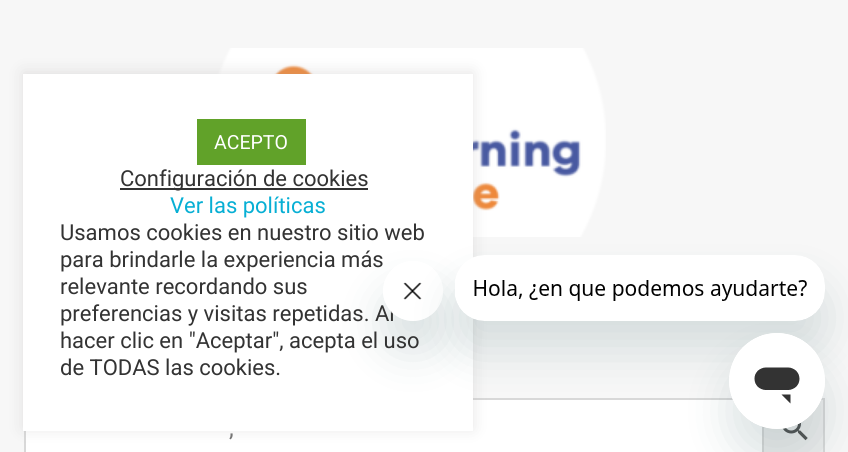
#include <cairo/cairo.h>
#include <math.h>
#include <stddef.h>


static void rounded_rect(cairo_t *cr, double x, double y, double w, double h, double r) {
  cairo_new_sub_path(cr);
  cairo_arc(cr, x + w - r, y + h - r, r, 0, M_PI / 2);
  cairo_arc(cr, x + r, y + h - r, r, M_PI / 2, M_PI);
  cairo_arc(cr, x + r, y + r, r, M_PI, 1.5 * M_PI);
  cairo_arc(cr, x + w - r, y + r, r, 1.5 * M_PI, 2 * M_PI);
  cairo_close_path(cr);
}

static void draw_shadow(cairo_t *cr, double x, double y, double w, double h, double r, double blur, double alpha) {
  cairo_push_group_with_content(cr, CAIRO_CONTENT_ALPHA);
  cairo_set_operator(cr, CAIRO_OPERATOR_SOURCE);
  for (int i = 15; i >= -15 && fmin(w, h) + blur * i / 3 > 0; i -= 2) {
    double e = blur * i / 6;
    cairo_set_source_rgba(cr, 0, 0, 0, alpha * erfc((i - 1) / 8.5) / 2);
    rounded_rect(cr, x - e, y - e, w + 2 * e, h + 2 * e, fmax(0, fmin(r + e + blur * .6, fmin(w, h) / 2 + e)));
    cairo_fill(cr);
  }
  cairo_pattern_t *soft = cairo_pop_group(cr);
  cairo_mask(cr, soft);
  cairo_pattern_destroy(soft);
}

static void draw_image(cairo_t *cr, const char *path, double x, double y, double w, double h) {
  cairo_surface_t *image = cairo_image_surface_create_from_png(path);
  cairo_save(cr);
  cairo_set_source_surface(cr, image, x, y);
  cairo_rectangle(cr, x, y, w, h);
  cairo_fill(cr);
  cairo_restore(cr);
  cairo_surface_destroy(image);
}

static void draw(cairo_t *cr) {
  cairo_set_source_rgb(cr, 247 / 255.0, 247 / 255.0, 247 / 255.0);
  cairo_paint(cr);
  draw_image(cr, "images/4.png", 217, 48, 389, 189);
  cairo_set_source_rgb(cr, 1, 1, 1);
  cairo_rectangle(cr, 26, 400, 736, 52);
  cairo_fill(cr);
  cairo_set_source_rgb(cr, 237 / 255.0, 237 / 255.0, 237 / 255.0);
  cairo_rectangle(cr, 763, 399, 61, 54);
  cairo_fill_preserve(cr);
  cairo_set_source_rgb(cr, 216 / 255.0, 216 / 255.0, 216 / 255.0);
  cairo_stroke(cr);
  cairo_rectangle(cr, 25, 399, 738, 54);
  cairo_stroke(cr);
  cairo_set_source_rgb(cr, 172 / 255.0, 171 / 255.0, 171 / 255.0);
  draw_shadow(cr, 23, 72, 450, 357, 0, 7.5, 0.3);
  cairo_set_source_rgb(cr, 1, 1, 1);
  cairo_rectangle(cr, 23, 74, 450, 357);
  cairo_fill(cr);
  cairo_set_source_rgb(cr, 97 / 255.0, 162 / 255.0, 41 / 255.0);
  cairo_rectangle(cr, 197, 119, 109, 46);
  cairo_fill(cr);
  cairo_set_source_rgb(cr, 51 / 255.0, 51 / 255.0, 51 / 255.0);
  cairo_rectangle(cr, 120, 188, 248, 2);
  cairo_fill(cr);
  cairo_save(cr);
  cairo_set_fill_rule(cr, CAIRO_FILL_RULE_EVEN_ODD);
  cairo_new_path(cr);
  cairo_move_to(cr, 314, 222);
  cairo_line_to(cr, 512, 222);
  cairo_line_to(cr, 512, 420);
  cairo_line_to(cr, 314, 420);
  cairo_close_path(cr);
  cairo_move_to(cr, 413, 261);
  cairo_curve_to(cr, 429.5, 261, 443, 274.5, 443, 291);
  cairo_curve_to(cr, 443, 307.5, 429.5, 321, 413, 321);
  cairo_curve_to(cr, 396.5, 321, 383, 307.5, 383, 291);
  cairo_curve_to(cr, 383, 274.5, 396.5, 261, 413, 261);
  cairo_close_path(cr);
  cairo_clip(cr);
  cairo_set_source_rgb(cr, 23 / 255.0, 73 / 255.0, 77 / 255.0);
  draw_shadow(cr, 383, 291, 60, 60, 30, 22.5, 0.15);
  cairo_restore(cr);
  draw_image(cr, "images/5.png", 782, 422, 26, 19);
  cairo_select_font_face(cr, "Roboto", CAIRO_FONT_SLANT_NORMAL, CAIRO_FONT_WEIGHT_NORMAL);
  cairo_set_font_size(cr, 19.5);
  cairo_set_source_rgb(cr, 1, 1, 1);
  cairo_move_to(cr, 214, 149);
  cairo_show_text(cr, "ACEPTO");
  cairo_set_font_size(cr, 22);
  cairo_set_source_rgb(cr, 51 / 255.0, 51 / 255.0, 51 / 255.0);
  cairo_move_to(cr, 120, 186);
  cairo_show_text(cr, "Configuración de cookies");
  cairo_set_source_rgb(cr, 7 / 255.0, 175 / 255.0, 212 / 255.0);
  cairo_move_to(cr, 170, 213);
  cairo_show_text(cr, "Ver las políticas");
  cairo_set_source_rgb(cr, 51 / 255.0, 51 / 255.0, 51 / 255.0);
  cairo_move_to(cr, 60, 240);
  cairo_show_text(cr, "Usamos cookies en nuestro sitio web");
  cairo_move_to(cr, 60, 267);
  cairo_show_text(cr, "para brindarle la experiencia más");
  cairo_move_to(cr, 60, 294);
  cairo_show_text(cr, "relevante recordando sus");
  cairo_move_to(cr, 60, 321);
  cairo_show_text(cr, "preferencias y visitas repetidas. Al");
  cairo_move_to(cr, 60, 348);
  cairo_show_text(cr, "hacer clic en \"Aceptar\", acepta el uso");
  cairo_move_to(cr, 60, 375);
  cairo_show_text(cr, "de TODAS las cookies.");
  draw_image(cr, "images/2.png", 390, 282, 32, 32);
  cairo_set_source_rgb(cr, 23 / 255.0, 73 / 255.0, 77 / 255.0);
  draw_shadow(cr, 455, 285, 370, 66, 30, 22.5, 0.15);
  draw_image(cr, "images/1.png", 455, 255, 370, 66);
  draw_shadow(cr, 729, 363, 96, 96, 48, 22.5, 0.15);
  draw_image(cr, "images/3.png", 729, 333, 96, 96);
  cairo_set_font_size(cr, 24);
  cairo_set_source_rgb(cr, 117 / 255.0, 117 / 255.0, 117 / 255.0);
  cairo_move_to(cr, 229, 436);
  cairo_show_text(cr, ",");
}

int main(void) {
  cairo_surface_t *surface = cairo_image_surface_create(CAIRO_FORMAT_RGB24, 848, 452);
  cairo_t *cr = cairo_create(surface);
  cairo_font_options_t *options = cairo_font_options_create();
  cairo_font_options_set_hint_metrics(options, CAIRO_HINT_METRICS_OFF);
  cairo_font_options_set_hint_style(options, CAIRO_HINT_STYLE_NONE);
  cairo_set_font_options(cr, options);
  cairo_set_miter_limit(cr, 4);
  draw(cr);
  cairo_surface_write_to_png(surface, "out.png");
  cairo_font_options_destroy(options);
  cairo_destroy(cr);
  cairo_surface_destroy(surface);
  return 0;
}
